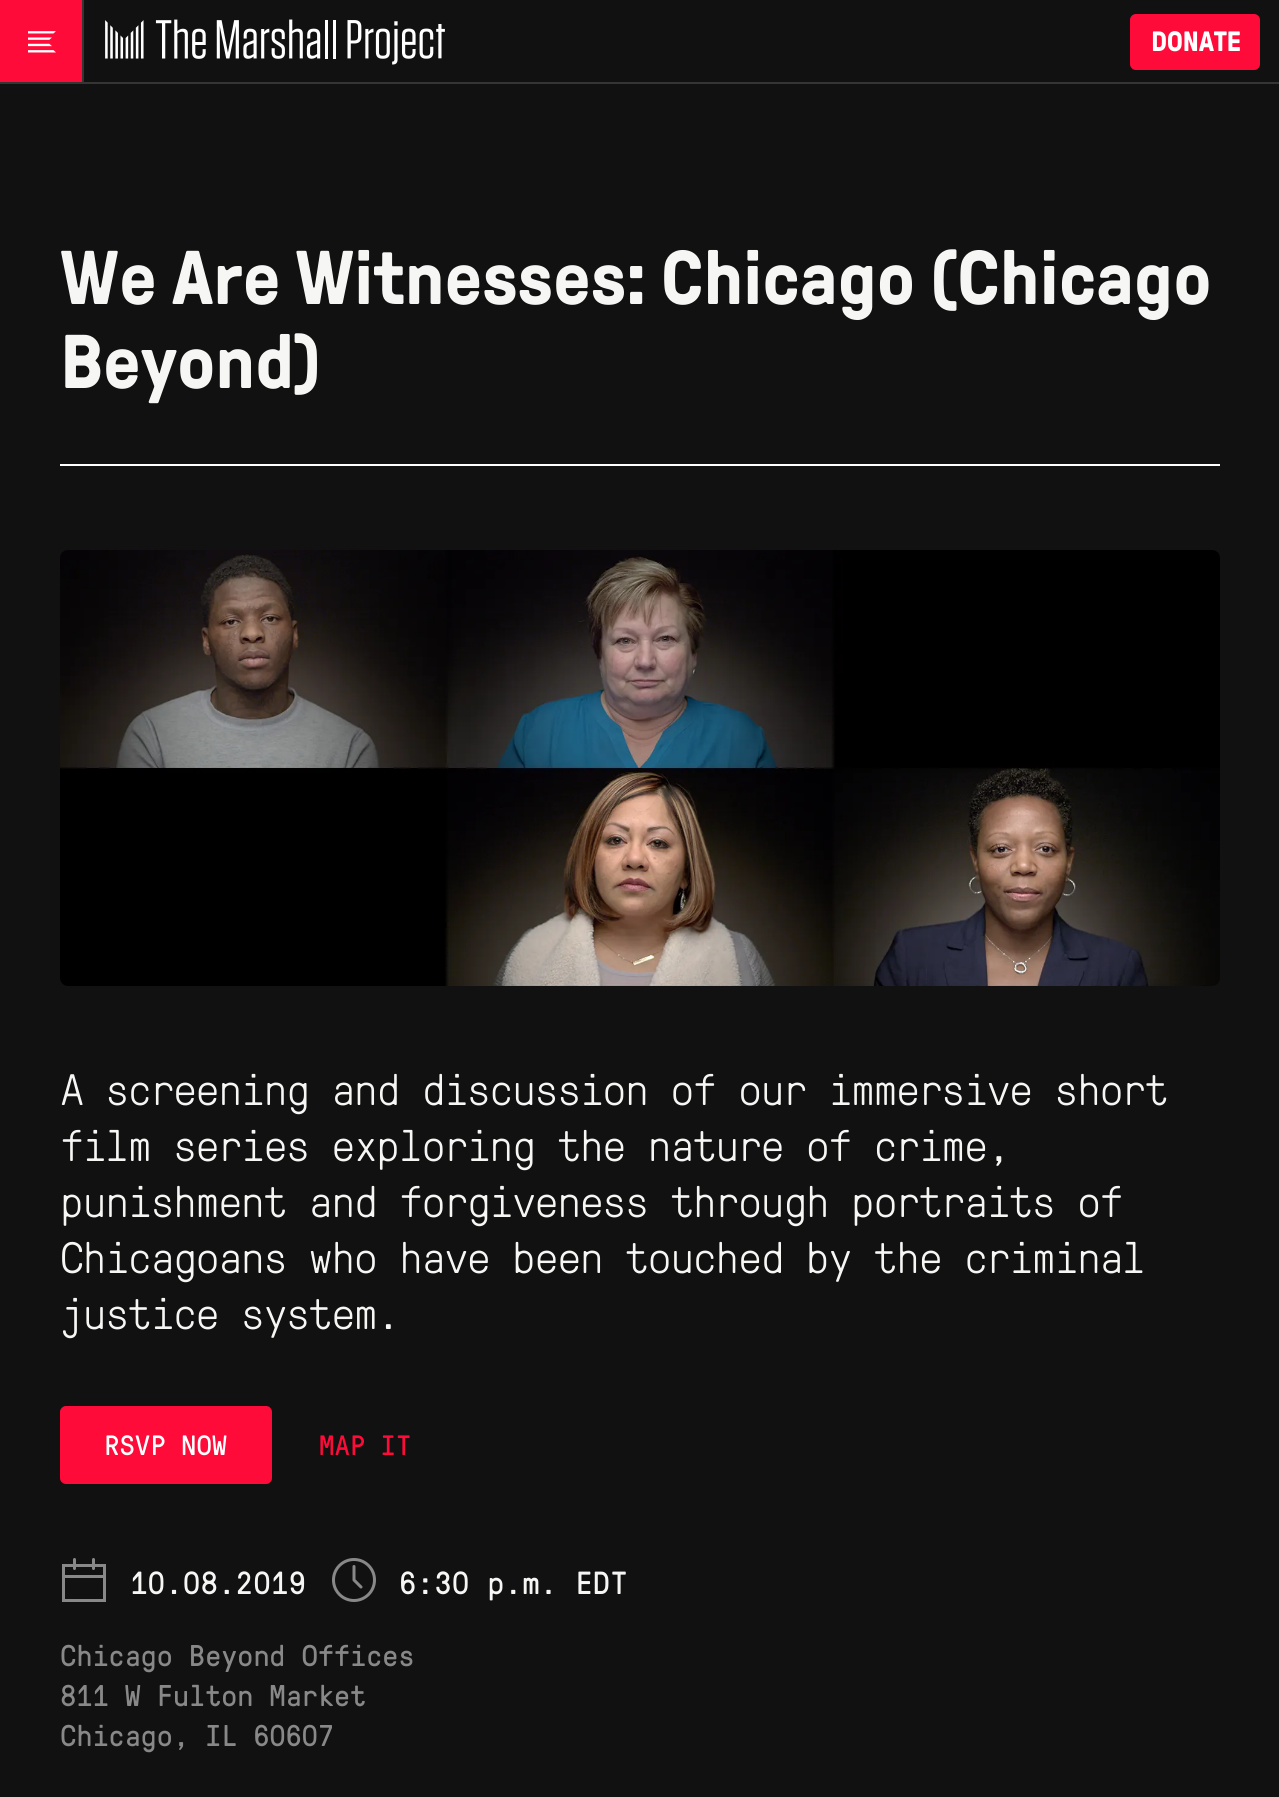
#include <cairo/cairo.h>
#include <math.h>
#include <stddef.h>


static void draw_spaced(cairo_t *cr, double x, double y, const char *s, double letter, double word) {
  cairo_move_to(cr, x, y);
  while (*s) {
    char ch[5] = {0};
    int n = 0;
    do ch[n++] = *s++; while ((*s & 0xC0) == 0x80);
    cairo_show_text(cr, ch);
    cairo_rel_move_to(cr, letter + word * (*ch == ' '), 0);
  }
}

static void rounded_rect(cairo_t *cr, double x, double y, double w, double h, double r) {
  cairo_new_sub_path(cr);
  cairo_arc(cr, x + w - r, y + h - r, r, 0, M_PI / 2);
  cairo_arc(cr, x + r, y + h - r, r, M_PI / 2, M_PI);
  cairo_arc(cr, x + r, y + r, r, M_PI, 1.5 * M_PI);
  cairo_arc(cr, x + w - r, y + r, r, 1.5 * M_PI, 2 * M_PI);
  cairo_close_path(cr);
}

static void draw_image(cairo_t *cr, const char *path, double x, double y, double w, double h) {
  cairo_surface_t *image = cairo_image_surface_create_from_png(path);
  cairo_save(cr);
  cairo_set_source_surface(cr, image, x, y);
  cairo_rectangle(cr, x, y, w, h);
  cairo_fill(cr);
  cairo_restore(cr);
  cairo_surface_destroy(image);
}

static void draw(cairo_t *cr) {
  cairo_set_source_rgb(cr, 17 / 255.0, 17 / 255.0, 17 / 255.0);
  cairo_paint(cr);
  cairo_set_source_rgb(cr, 53 / 255.0, 53 / 255.0, 53 / 255.0);
  cairo_rectangle(cr, 84, 82, 1195, 2);
  cairo_fill(cr);
  cairo_set_source_rgb(cr, 1, 11 / 255.0, 58 / 255.0);
  cairo_rectangle(cr, 0, 0, 82, 82);
  cairo_fill(cr);
  cairo_set_source_rgb(cr, 53 / 255.0, 53 / 255.0, 53 / 255.0);
  cairo_rectangle(cr, 82, 0, 2, 84);
  cairo_fill(cr);
  cairo_rectangle(cr, 0, 82, 82, 2);
  cairo_fill(cr);
  draw_image(cr, "images/1.png", 28, 31, 28, 22);
  draw_image(cr, "images/2.png", 105, 19, 340, 46);
  cairo_set_source_rgb(cr, 1, 11 / 255.0, 58 / 255.0);
  rounded_rect(cr, 1130, 14, 130, 56, 6);
  cairo_fill(cr);
  cairo_set_source_rgb(cr, 1, 1, 1);
  cairo_rectangle(cr, 60, 464, 1160, 2);
  cairo_fill(cr);
  draw_image(cr, "images/3.png", 60, 550, 1160, 436);
  cairo_set_source_rgb(cr, 1, 11 / 255.0, 58 / 255.0);
  rounded_rect(cr, 62, 1408, 208, 74, 4);
  cairo_fill_preserve(cr);
  cairo_set_line_width(cr, 4);
  cairo_stroke(cr);
  cairo_rectangle(cr, 63.5, 1565.5, 41, 35);
  cairo_set_source_rgb(cr, 136 / 255.0, 136 / 255.0, 136 / 255.0);
  cairo_set_line_width(cr, 3);
  cairo_stroke(cr);
  cairo_rectangle(cr, 63.5, 1565.5, 41, 11);
  cairo_stroke(cr);
  cairo_new_path(cr);
  cairo_move_to(cr, 74.5, 1559.5);
  cairo_line_to(cr, 74.5, 1568.5);
  cairo_move_to(cr, 93.5, 1559.5);
  cairo_line_to(cr, 93.5, 1568.5);
  cairo_set_line_cap(cr, CAIRO_LINE_CAP_ROUND);
  cairo_set_line_join(cr, CAIRO_LINE_JOIN_ROUND);
  cairo_stroke(cr);
  cairo_arc(cr, 354, 1580, 20.5, 0, 2 * M_PI);
  cairo_set_line_cap(cr, CAIRO_LINE_CAP_BUTT);
  cairo_set_line_join(cr, CAIRO_LINE_JOIN_MITER);
  cairo_stroke(cr);
  cairo_new_path(cr);
  cairo_move_to(cr, 354, 1566.5);
  cairo_line_to(cr, 354, 1580);
  cairo_line_to(cr, 361, 1587);
  cairo_set_line_cap(cr, CAIRO_LINE_CAP_ROUND);
  cairo_set_line_join(cr, CAIRO_LINE_JOIN_ROUND);
  cairo_stroke(cr);
  cairo_select_font_face(cr, "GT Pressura", CAIRO_FONT_SLANT_NORMAL, CAIRO_FONT_WEIGHT_BOLD);
  cairo_set_font_size(cr, 28);
  cairo_set_source_rgb(cr, 1, 1, 1);
  draw_spaced(cr, 1151, 51, "DONATE", -0.4, 0);
  cairo_set_font_size(cr, 76);
  cairo_set_source_rgb(cr, 246 / 255.0, 246 / 255.0, 244 / 255.0);
  cairo_move_to(cr, 60, 304);
  cairo_show_text(cr, "We Are Witnesses: Chicago (Chicago");
  cairo_move_to(cr, 60, 388);
  cairo_show_text(cr, "Beyond)");
  cairo_select_font_face(cr, "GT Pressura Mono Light", CAIRO_FONT_SLANT_NORMAL, CAIRO_FONT_WEIGHT_NORMAL);
  cairo_set_font_size(cr, 44);
  draw_spaced(cr, 60, 1105, "A screening and discussion of our immersive short", -1.6, 0);
  draw_spaced(cr, 60, 1161, "film series exploring the nature of crime,", -1.6, 0);
  draw_spaced(cr, 60, 1217, "punishment and forgiveness through portraits of", -1.6, 0);
  draw_spaced(cr, 60, 1273, "Chicagoans who have been touched by the criminal", -1.6, 0);
  draw_spaced(cr, 60, 1329, "justice system.", -1.6, 0);
  cairo_select_font_face(cr, "GT Pressura Mono", CAIRO_FONT_SLANT_NORMAL, CAIRO_FONT_WEIGHT_NORMAL);
  cairo_set_font_size(cr, 28);
  cairo_set_source_rgb(cr, 1, 1, 1);
  cairo_move_to(cr, 104, 1455);
  cairo_show_text(cr, "RSVP NOW");
  cairo_set_source_rgb(cr, 1, 11 / 255.0, 58 / 255.0);
  cairo_move_to(cr, 319, 1455);
  cairo_show_text(cr, "MAP IT");
  cairo_set_font_size(cr, 32);
  cairo_set_source_rgb(cr, 246 / 255.0, 246 / 255.0, 244 / 255.0);
  cairo_move_to(cr, 130, 1594);
  cairo_show_text(cr, "10.08.2019");
  cairo_move_to(cr, 399, 1594);
  cairo_show_text(cr, "6:30 p.m. EDT");
  cairo_set_font_size(cr, 30);
  cairo_set_source_rgb(cr, 136 / 255.0, 136 / 255.0, 136 / 255.0);
  draw_spaced(cr, 60, 1666, "Chicago Beyond Offices", -0.4, 0);
  draw_spaced(cr, 60, 1706, "811 W Fulton Market", -0.4, 0);
  draw_spaced(cr, 60, 1746, "Chicago, IL 60607", -0.4, 0);
}

int main(void) {
  cairo_surface_t *surface = cairo_image_surface_create(CAIRO_FORMAT_RGB24, 1279, 1797);
  cairo_t *cr = cairo_create(surface);
  cairo_font_options_t *options = cairo_font_options_create();
  cairo_font_options_set_hint_metrics(options, CAIRO_HINT_METRICS_OFF);
  cairo_font_options_set_hint_style(options, CAIRO_HINT_STYLE_NONE);
  cairo_set_font_options(cr, options);
  cairo_set_miter_limit(cr, 4);
  draw(cr);
  cairo_surface_write_to_png(surface, "out.png");
  cairo_font_options_destroy(options);
  cairo_destroy(cr);
  cairo_surface_destroy(surface);
  return 0;
}
